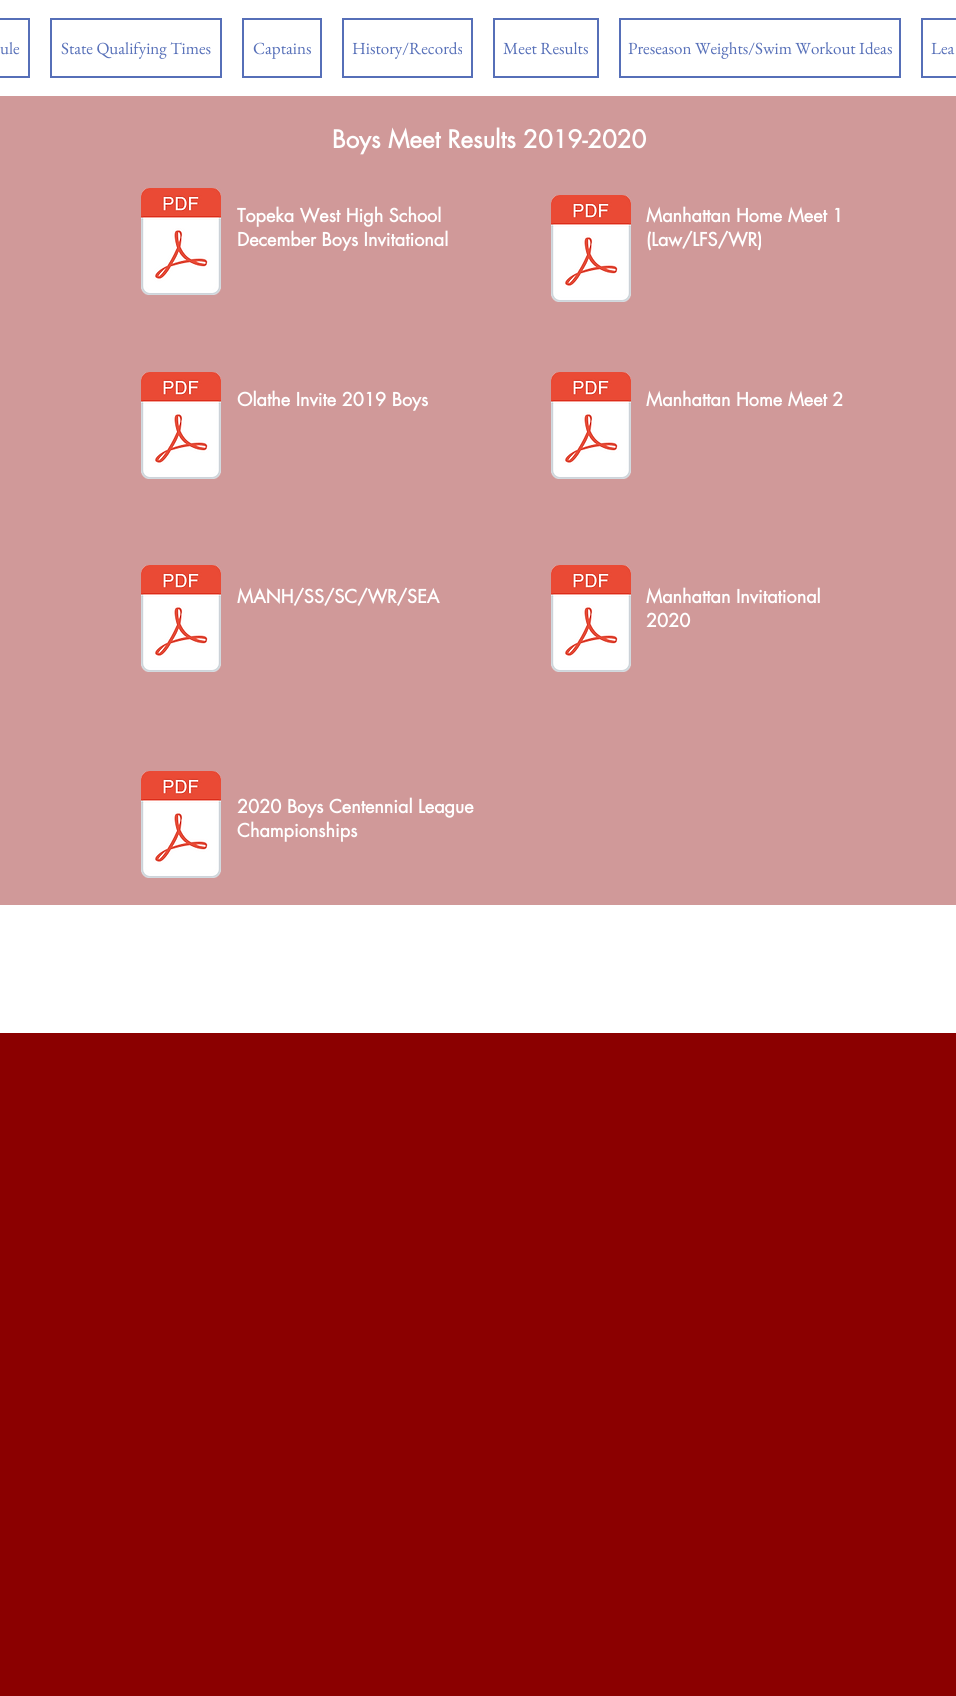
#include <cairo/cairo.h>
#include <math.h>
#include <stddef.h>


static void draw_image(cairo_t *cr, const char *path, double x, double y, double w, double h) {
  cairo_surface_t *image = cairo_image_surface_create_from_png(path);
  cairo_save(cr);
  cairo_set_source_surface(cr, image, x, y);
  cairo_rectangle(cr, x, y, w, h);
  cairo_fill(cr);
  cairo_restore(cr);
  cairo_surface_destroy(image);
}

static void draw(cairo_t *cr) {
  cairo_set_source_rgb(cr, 139 / 255.0, 0, 0);
  cairo_paint(cr);
  cairo_set_source_rgb(cr, 1, 1, 1);
  cairo_rectangle(cr, 0, 0, 956, 96);
  cairo_fill(cr);
  cairo_rectangle(cr, -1, 19, 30, 58);
  cairo_set_source_rgb(cr, 86 / 255.0, 111 / 255.0, 184 / 255.0);
  cairo_stroke(cr);
  cairo_rectangle(cr, 51, 19, 170, 58);
  cairo_stroke(cr);
  cairo_rectangle(cr, 243, 19, 78, 58);
  cairo_stroke(cr);
  cairo_rectangle(cr, 343, 19, 129, 58);
  cairo_stroke(cr);
  cairo_rectangle(cr, 494, 19, 104, 58);
  cairo_stroke(cr);
  cairo_rectangle(cr, 620, 19, 280, 58);
  cairo_stroke(cr);
  cairo_rectangle(cr, 922, 19, 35, 58);
  cairo_stroke(cr);
  cairo_set_source_rgb(cr, 208 / 255.0, 153 / 255.0, 153 / 255.0);
  cairo_rectangle(cr, 0, 96, 956, 809);
  cairo_fill(cr);
  draw_image(cr, "images/1.png", 141, 188, 80, 107);
  draw_image(cr, "images/1.png", 551, 195, 80, 107);
  draw_image(cr, "images/1.png", 141, 372, 80, 107);
  draw_image(cr, "images/1.png", 551, 372, 80, 107);
  draw_image(cr, "images/1.png", 141, 565, 80, 107);
  draw_image(cr, "images/1.png", 551, 565, 80, 107);
  draw_image(cr, "images/1.png", 141, 771, 80, 107);
  cairo_set_source_rgb(cr, 1, 1, 1);
  cairo_rectangle(cr, 0, 905, 956, 128);
  cairo_fill(cr);
  cairo_select_font_face(cr, "EB Garamond", CAIRO_FONT_SLANT_NORMAL, CAIRO_FONT_WEIGHT_NORMAL);
  cairo_set_font_size(cr, 17);
  cairo_set_source_rgb(cr, 86 / 255.0, 111 / 255.0, 184 / 255.0);
  cairo_move_to(cr, 0, 54);
  cairo_show_text(cr, "ule");
  cairo_move_to(cr, 61, 54);
  cairo_show_text(cr, "State Qualifying Times");
  cairo_move_to(cr, 253, 54);
  cairo_show_text(cr, "Captains");
  cairo_move_to(cr, 352, 54);
  cairo_show_text(cr, "History/Records");
  cairo_move_to(cr, 503, 54);
  cairo_show_text(cr, "Meet Results");
  cairo_move_to(cr, 628, 54);
  cairo_show_text(cr, "Preseason Weights/Swim Workout Ideas");
  cairo_move_to(cr, 931, 54);
  cairo_show_text(cr, "Lea");
  cairo_select_font_face(cr, "futura", CAIRO_FONT_SLANT_NORMAL, CAIRO_FONT_WEIGHT_BOLD);
  cairo_set_font_size(cr, 24);
  cairo_set_source_rgb(cr, 1, 1, 1);
  cairo_move_to(cr, 332, 148);
  cairo_show_text(cr, "Boys Meet Results 2019-2020");
  cairo_set_font_size(cr, 18);
  cairo_move_to(cr, 237, 222);
  cairo_show_text(cr, "Topeka West High School");
  cairo_move_to(cr, 237, 246);
  cairo_show_text(cr, "December Boys Invitational");
  cairo_move_to(cr, 646, 222);
  cairo_show_text(cr, "Manhattan Home Meet 1");
  cairo_move_to(cr, 646, 246);
  cairo_show_text(cr, "(Law/LFS/WR)");
  cairo_move_to(cr, 237, 406);
  cairo_show_text(cr, "Olathe Invite 2019 Boys");
  cairo_move_to(cr, 646, 406);
  cairo_show_text(cr, "Manhattan Home Meet 2");
  cairo_move_to(cr, 237, 603);
  cairo_show_text(cr, "MANH/SS/SC/WR/SEA");
  cairo_move_to(cr, 646, 603);
  cairo_show_text(cr, "Manhattan Invitational");
  cairo_move_to(cr, 646, 627);
  cairo_show_text(cr, "2020");
  cairo_move_to(cr, 237, 813);
  cairo_show_text(cr, "2020 Boys Centennial League");
  cairo_move_to(cr, 237, 837);
  cairo_show_text(cr, "Championships");
}

int main(void) {
  cairo_surface_t *surface = cairo_image_surface_create(CAIRO_FORMAT_RGB24, 956, 1696);
  cairo_t *cr = cairo_create(surface);
  cairo_font_options_t *options = cairo_font_options_create();
  cairo_font_options_set_hint_metrics(options, CAIRO_HINT_METRICS_OFF);
  cairo_font_options_set_hint_style(options, CAIRO_HINT_STYLE_NONE);
  cairo_set_font_options(cr, options);
  cairo_set_miter_limit(cr, 4);
  draw(cr);
  cairo_surface_write_to_png(surface, "out.png");
  cairo_font_options_destroy(options);
  cairo_destroy(cr);
  cairo_surface_destroy(surface);
  return 0;
}
